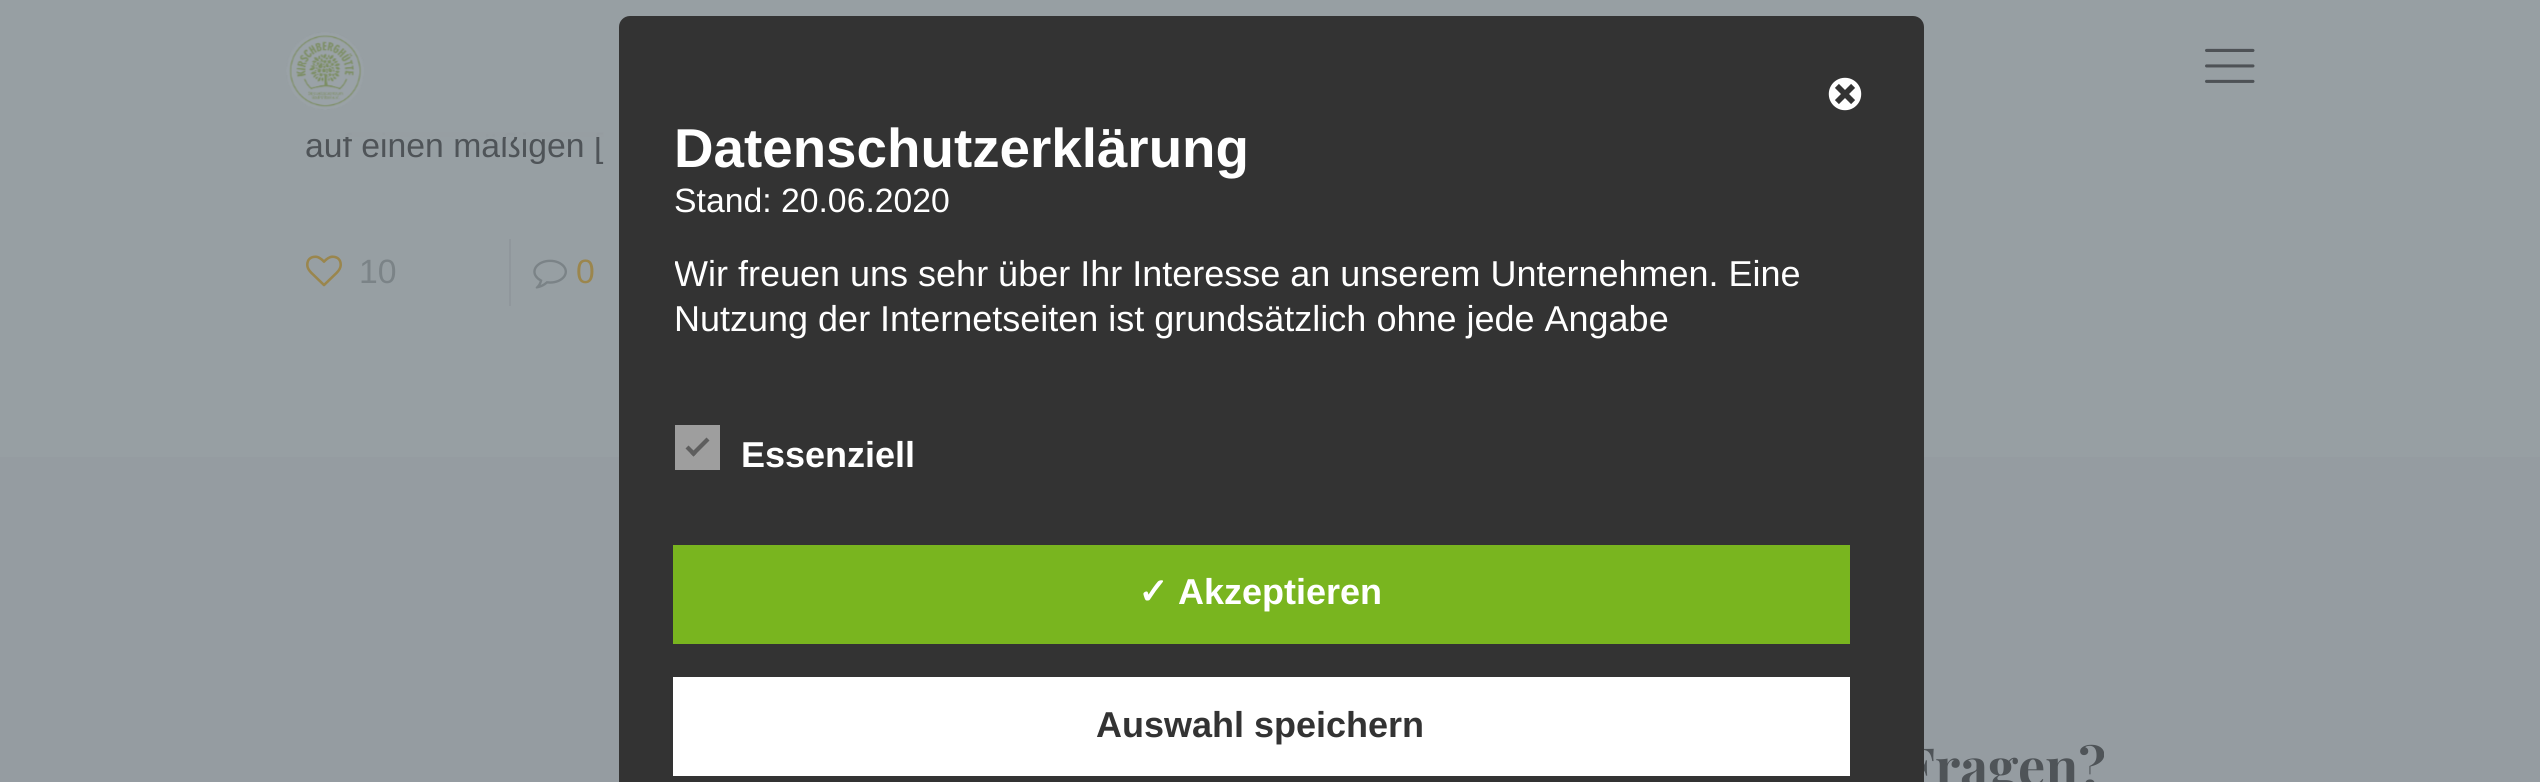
#include <cairo/cairo.h>
#include <math.h>
#include <stddef.h>


static void rounded_rect(cairo_t *cr, double x, double y, double w, double h, double r) {
  cairo_new_sub_path(cr);
  cairo_arc(cr, x + w - r, y + h - r, r, 0, M_PI / 2);
  cairo_arc(cr, x + r, y + h - r, r, M_PI / 2, M_PI);
  cairo_arc(cr, x + r, y + r, r, M_PI, 1.5 * M_PI);
  cairo_arc(cr, x + w - r, y + r, r, 1.5 * M_PI, 2 * M_PI);
  cairo_close_path(cr);
}

static void draw_image(cairo_t *cr, const char *path, double x, double y, double w, double h) {
  cairo_surface_t *image = cairo_image_surface_create_from_png(path);
  cairo_save(cr);
  cairo_set_source_surface(cr, image, x, y);
  cairo_rectangle(cr, x, y, w, h);
  cairo_fill(cr);
  cairo_restore(cr);
  cairo_surface_destroy(image);
}

static void draw(cairo_t *cr) {
  cairo_set_source_rgb(cr, 151 / 255.0, 159 / 255.0, 163 / 255.0);
  cairo_paint(cr);
  draw_image(cr, "images/2.png", 286, 32, 78, 78);
  draw_image(cr, "images/3.png", 2205, 48, 50, 35);
  draw_image(cr, "images/4.png", 306, 255, 36, 32);
  cairo_set_source_rgb(cr, 144 / 255.0, 151 / 255.0, 156 / 255.0);
  cairo_rectangle(cr, 509, 239, 2, 67);
  cairo_fill(cr);
  draw_image(cr, "images/5.png", 533, 259, 34, 30);
  cairo_set_source_rgb(cr, 149 / 255.0, 156 / 255.0, 161 / 255.0);
  cairo_rectangle(cr, 0, 457, 2540, 325);
  cairo_fill(cr);
  cairo_select_font_face(cr, "Liberation Sans", CAIRO_FONT_SLANT_NORMAL, CAIRO_FONT_WEIGHT_NORMAL);
  cairo_set_font_size(cr, 33.75);
  cairo_set_source_rgb(cr, 79 / 255.0, 84 / 255.0, 88 / 255.0);
  cairo_move_to(cr, 305, 157);
  cairo_show_text(cr, "auf einen mäßigen [");
  cairo_set_source_rgba(cr, 151 / 255.0, 159 / 255.0, 163 / 255.0, 0.97);
  cairo_rectangle(cr, 345, 132, 259, 5);
  cairo_fill(cr);
  cairo_set_source_rgb(cr, 123 / 255.0, 131 / 255.0, 135 / 255.0);
  cairo_move_to(cr, 359, 283);
  cairo_show_text(cr, "10");
  cairo_set_source_rgb(cr, 155 / 255.0, 134 / 255.0, 77 / 255.0);
  cairo_move_to(cr, 576, 283);
  cairo_show_text(cr, "0");
  cairo_select_font_face(cr, "Playfair Display", CAIRO_FONT_SLANT_NORMAL, CAIRO_FONT_WEIGHT_BOLD);
  cairo_set_font_size(cr, 54);
  cairo_set_source_rgb(cr, 79 / 255.0, 84 / 255.0, 88 / 255.0);
  cairo_move_to(cr, 1903, 787);
  cairo_show_text(cr, "Fragen?");
  cairo_set_source_rgb(cr, 51 / 255.0, 51 / 255.0, 51 / 255.0);
  rounded_rect(cr, 619, 16, 1305, 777, 11);
  cairo_fill(cr);
  cairo_set_source_rgb(cr, 1, 1, 1);
  cairo_rectangle(cr, 673, 677, 1177, 99);
  cairo_fill(cr);
  cairo_select_font_face(cr, "Liberation Sans", CAIRO_FONT_SLANT_NORMAL, CAIRO_FONT_WEIGHT_BOLD);
  cairo_set_font_size(cr, 36);
  cairo_set_source_rgb(cr, 51 / 255.0, 51 / 255.0, 51 / 255.0);
  cairo_move_to(cr, 1096, 737);
  cairo_show_text(cr, "Auswahl speichern");
  cairo_set_source_rgb(cr, 121 / 255.0, 181 / 255.0, 31 / 255.0);
  cairo_rectangle(cr, 673, 545, 1177, 99);
  cairo_fill(cr);
  cairo_set_source_rgb(cr, 1, 1, 1);
  cairo_move_to(cr, 1178, 604);
  cairo_show_text(cr, "Akzeptieren");
  cairo_select_font_face(cr, "DejaVu Sans", CAIRO_FONT_SLANT_NORMAL, CAIRO_FONT_WEIGHT_BOLD);
  cairo_move_to(cr, 1138, 604);
  cairo_show_text(cr, "✓");
  cairo_set_source_rgb(cr, 158 / 255.0, 158 / 255.0, 158 / 255.0);
  cairo_rectangle(cr, 675, 425, 45, 45);
  cairo_fill(cr);
  cairo_set_source_rgb(cr, 94 / 255.0, 94 / 255.0, 94 / 255.0);
  cairo_new_path(cr);
  cairo_move_to(cr, 706.5, 437.5);
  cairo_line_to(cr, 709.5, 440.5);
  cairo_line_to(cr, 693.5, 456.5);
  cairo_line_to(cr, 690.5, 453.5);
  cairo_close_path(cr);
  cairo_fill(cr);
  cairo_new_path(cr);
  cairo_move_to(cr, 688.5, 445.5);
  cairo_line_to(cr, 696.5, 453.5);
  cairo_line_to(cr, 693.5, 456.5);
  cairo_line_to(cr, 685.5, 448.5);
  cairo_close_path(cr);
  cairo_fill(cr);
  cairo_select_font_face(cr, "Liberation Sans", CAIRO_FONT_SLANT_NORMAL, CAIRO_FONT_WEIGHT_BOLD);
  cairo_set_source_rgb(cr, 1, 1, 1);
  cairo_move_to(cr, 741, 467);
  cairo_show_text(cr, "Essenziell");
  cairo_select_font_face(cr, "Liberation Sans", CAIRO_FONT_SLANT_NORMAL, CAIRO_FONT_WEIGHT_NORMAL);
  cairo_move_to(cr, 674, 331);
  cairo_show_text(cr, "Nutzung der Internetseiten ist grundsätzlich ohne jede Angabe");
  cairo_save(cr);
  cairo_rectangle(cr, 675, 117, 1215, 236);
  cairo_clip(cr);
  cairo_move_to(cr, 674, 286);
  cairo_show_text(cr, "Wir freuen uns sehr über Ihr Interesse an unserem Unternehmen. Eine");
  cairo_restore(cr);
  cairo_set_font_size(cr, 33.75);
  cairo_move_to(cr, 674, 212);
  cairo_show_text(cr, "Stand: 20.06.2020");
  cairo_select_font_face(cr, "Liberation Sans", CAIRO_FONT_SLANT_NORMAL, CAIRO_FONT_WEIGHT_BOLD);
  cairo_set_font_size(cr, 54.75);
  cairo_move_to(cr, 674, 167);
  cairo_show_text(cr, "Datenschutzerklärung");
  draw_image(cr, "images/1.png", 1828, 77, 34, 34);
}

int main(void) {
  cairo_surface_t *surface = cairo_image_surface_create(CAIRO_FORMAT_RGB24, 2540, 782);
  cairo_t *cr = cairo_create(surface);
  cairo_font_options_t *options = cairo_font_options_create();
  cairo_font_options_set_hint_metrics(options, CAIRO_HINT_METRICS_OFF);
  cairo_font_options_set_hint_style(options, CAIRO_HINT_STYLE_NONE);
  cairo_set_font_options(cr, options);
  cairo_set_miter_limit(cr, 4);
  draw(cr);
  cairo_surface_write_to_png(surface, "out.png");
  cairo_font_options_destroy(options);
  cairo_destroy(cr);
  cairo_surface_destroy(surface);
  return 0;
}
